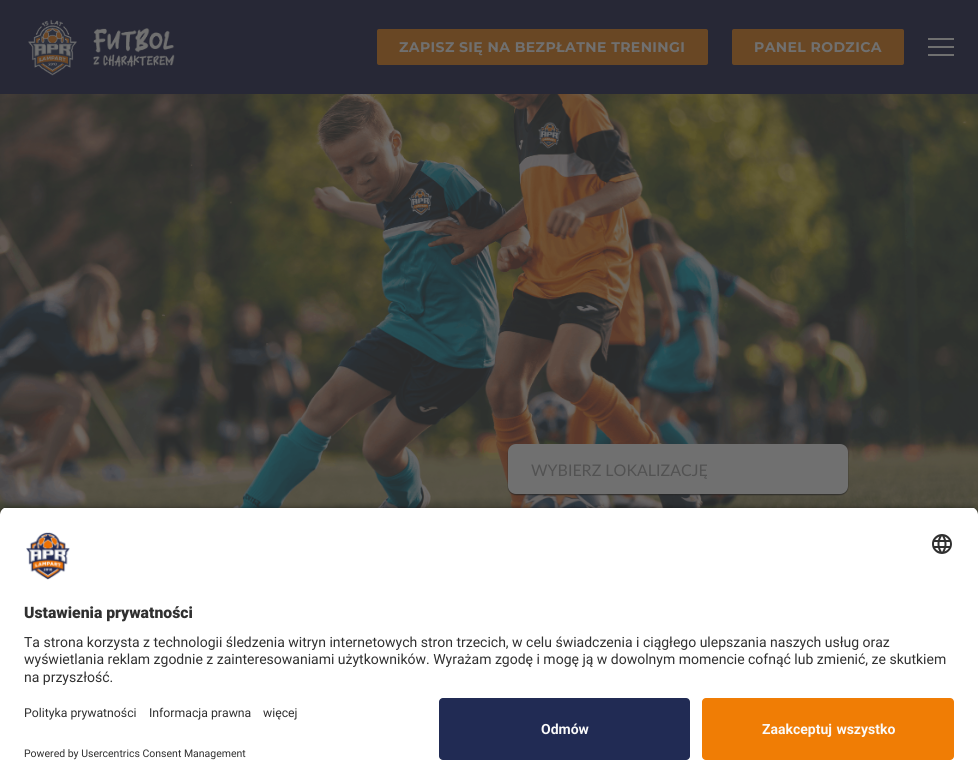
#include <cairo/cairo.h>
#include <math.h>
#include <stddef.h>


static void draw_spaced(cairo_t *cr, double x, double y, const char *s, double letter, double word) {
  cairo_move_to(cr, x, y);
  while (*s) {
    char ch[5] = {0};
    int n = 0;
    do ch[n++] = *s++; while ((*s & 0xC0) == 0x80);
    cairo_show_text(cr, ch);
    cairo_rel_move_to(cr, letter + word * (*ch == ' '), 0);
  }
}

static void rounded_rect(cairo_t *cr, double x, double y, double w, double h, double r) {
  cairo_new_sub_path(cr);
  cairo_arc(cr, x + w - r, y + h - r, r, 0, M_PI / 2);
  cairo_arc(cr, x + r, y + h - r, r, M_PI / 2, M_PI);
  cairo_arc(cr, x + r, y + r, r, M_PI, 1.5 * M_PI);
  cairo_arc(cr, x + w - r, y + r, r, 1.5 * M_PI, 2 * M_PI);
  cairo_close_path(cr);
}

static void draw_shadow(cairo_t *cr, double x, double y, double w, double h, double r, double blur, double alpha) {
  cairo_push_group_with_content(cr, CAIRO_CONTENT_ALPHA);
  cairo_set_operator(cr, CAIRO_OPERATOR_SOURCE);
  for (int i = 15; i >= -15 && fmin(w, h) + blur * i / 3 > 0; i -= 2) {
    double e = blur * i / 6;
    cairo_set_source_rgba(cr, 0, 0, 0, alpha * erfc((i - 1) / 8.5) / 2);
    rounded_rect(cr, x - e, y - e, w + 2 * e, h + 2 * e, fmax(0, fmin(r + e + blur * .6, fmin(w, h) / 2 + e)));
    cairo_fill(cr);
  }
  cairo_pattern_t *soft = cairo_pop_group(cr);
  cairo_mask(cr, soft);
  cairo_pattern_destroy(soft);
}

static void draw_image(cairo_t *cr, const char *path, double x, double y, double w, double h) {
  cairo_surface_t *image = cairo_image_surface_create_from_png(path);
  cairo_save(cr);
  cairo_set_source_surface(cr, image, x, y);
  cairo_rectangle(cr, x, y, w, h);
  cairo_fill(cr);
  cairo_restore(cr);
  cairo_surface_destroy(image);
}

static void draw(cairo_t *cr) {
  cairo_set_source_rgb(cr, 1, 1, 1);
  cairo_paint(cr);
  cairo_set_source_rgb(cr, 39 / 255.0, 40 / 255.0, 54 / 255.0);
  cairo_rectangle(cr, 0, 0, 978, 94);
  cairo_fill(cr);
  draw_image(cr, "images/1.png", 28, 19, 49, 57);
  draw_image(cr, "images/2.png", 93, 28, 82, 39);
  cairo_set_source_rgb(cr, 105 / 255.0, 71 / 255.0, 36 / 255.0);
  rounded_rect(cr, 377, 29, 331, 36, 2);
  cairo_fill(cr);
  rounded_rect(cr, 732, 29, 172, 36, 2);
  cairo_fill(cr);
  cairo_set_source_rgb(cr, 112 / 255.0, 112 / 255.0, 112 / 255.0);
  cairo_rectangle(cr, 928, 38, 26, 2);
  cairo_fill(cr);
  cairo_rectangle(cr, 928, 46, 26, 2);
  cairo_fill(cr);
  cairo_rectangle(cr, 928, 54, 26, 2);
  cairo_fill(cr);
  draw_image(cr, "images/3.png", 0, 94, 978, 420);
  cairo_set_source_rgb(cr, 36 / 255.0, 36 / 255.0, 36 / 255.0);
  draw_shadow(cr, 508, 445, 340, 50, 8, 0.5, 0.75);
  cairo_set_source_rgb(cr, 112 / 255.0, 112 / 255.0, 112 / 255.0);
  rounded_rect(cr, 508, 444, 340, 50, 8);
  cairo_fill(cr);
  cairo_set_source_rgb(cr, 0, 0, 0);
  draw_shadow(cr, 0, 510, 978, 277, 8, 3.5, 0.8);
  cairo_save(cr);
  cairo_new_path(cr);
  cairo_move_to(cr, 8, 507);
  cairo_line_to(cr, 970, 507);
  cairo_curve_to(cr, 974.5, 507, 978, 510.5, 978, 515);
  cairo_line_to(cr, 978, 690);
  cairo_line_to(cr, 0, 690);
  cairo_line_to(cr, 0, 515);
  cairo_curve_to(cr, 0, 510.5, 3.5, 507, 8, 507);
  cairo_close_path(cr);
  cairo_clip(cr);
  cairo_set_source_rgb(cr, 1, 1, 1);
  cairo_rectangle(cr, 0, 508, 978, 182);
  cairo_fill(cr);
  cairo_restore(cr);
  draw_image(cr, "images/4.png", 26, 532, 44, 48);
  draw_image(cr, "images/5.png", 932, 534, 20, 20);
  cairo_set_source_rgb(cr, 1, 1, 1);
  cairo_rectangle(cr, 0, 690, 978, 94);
  cairo_fill(cr);
  cairo_set_source_rgb(cr, 33 / 255.0, 43 / 255.0, 84 / 255.0);
  rounded_rect(cr, 439, 698, 251, 62, 4);
  cairo_fill(cr);
  cairo_set_source_rgb(cr, 240 / 255.0, 125 / 255.0, 5 / 255.0);
  rounded_rect(cr, 702, 698, 252, 62, 4);
  cairo_fill(cr);
  cairo_select_font_face(cr, "Montserrat", CAIRO_FONT_SLANT_NORMAL, CAIRO_FONT_WEIGHT_BOLD);
  cairo_set_font_size(cr, 14);
  cairo_set_source_rgb(cr, 112 / 255.0, 112 / 255.0, 112 / 255.0);
  draw_spaced(cr, 399, 52, "ZAPISZ SIĘ NA BEZPŁATNE TRENINGI", 0.4, 0);
  draw_spaced(cr, 754, 52, "PANEL RODZICA", 0.4, 0);
  cairo_select_font_face(cr, "Lato", CAIRO_FONT_SLANT_NORMAL, CAIRO_FONT_WEIGHT_NORMAL);
  cairo_set_font_size(cr, 16);
  cairo_set_source_rgb(cr, 82 / 255.0, 82 / 255.0, 82 / 255.0);
  cairo_move_to(cr, 531, 476);
  cairo_show_text(cr, "WYBIERZ LOKALIZACJĘ");
  cairo_select_font_face(cr, "Roboto Black", CAIRO_FONT_SLANT_NORMAL, CAIRO_FONT_WEIGHT_NORMAL);
  cairo_set_font_size(cr, 15.75);
  cairo_set_source_rgb(cr, 48 / 255.0, 48 / 255.0, 48 / 255.0);
  cairo_move_to(cr, 24, 618);
  cairo_show_text(cr, "Ustawienia prywatności");
  cairo_select_font_face(cr, "Roboto", CAIRO_FONT_SLANT_NORMAL, CAIRO_FONT_WEIGHT_NORMAL);
  cairo_set_font_size(cr, 14);
  cairo_move_to(cr, 24, 647);
  cairo_show_text(cr, "Ta strona korzysta z technologii śledzenia witryn internetowych stron trzecich, w celu świadczenia i ciągłego ulepszania naszych usług oraz");
  cairo_move_to(cr, 24, 664);
  cairo_show_text(cr, "wyświetlania reklam zgodnie z zainteresowaniami użytkowników. Wyrażam zgodę i mogę ją w dowolnym momencie cofnąć lub zmienić, ze skutkiem");
  cairo_move_to(cr, 24, 682);
  cairo_show_text(cr, "na przyszłość.");
  cairo_set_font_size(cr, 12.25);
  cairo_move_to(cr, 24, 717);
  cairo_show_text(cr, "Polityka prywatności");
  cairo_move_to(cr, 149, 717);
  cairo_show_text(cr, "Informacja prawna");
  cairo_move_to(cr, 263, 717);
  cairo_show_text(cr, "więcej");
  cairo_set_font_size(cr, 10.5);
  cairo_move_to(cr, 24, 757);
  cairo_show_text(cr, "Powered by Usercentrics Consent Management");
  cairo_select_font_face(cr, "Roboto", CAIRO_FONT_SLANT_NORMAL, CAIRO_FONT_WEIGHT_BOLD);
  cairo_set_font_size(cr, 14);
  cairo_set_source_rgb(cr, 250 / 255.0, 250 / 255.0, 250 / 255.0);
  cairo_move_to(cr, 541, 734);
  cairo_show_text(cr, "Odmów");
  draw_spaced(cr, 762, 734, "Zaakceptuj wszystko", 0, 1);
}

int main(void) {
  cairo_surface_t *surface = cairo_image_surface_create(CAIRO_FORMAT_RGB24, 978, 784);
  cairo_t *cr = cairo_create(surface);
  cairo_font_options_t *options = cairo_font_options_create();
  cairo_font_options_set_hint_metrics(options, CAIRO_HINT_METRICS_OFF);
  cairo_font_options_set_hint_style(options, CAIRO_HINT_STYLE_NONE);
  cairo_set_font_options(cr, options);
  cairo_set_miter_limit(cr, 4);
  draw(cr);
  cairo_surface_write_to_png(surface, "out.png");
  cairo_font_options_destroy(options);
  cairo_destroy(cr);
  cairo_surface_destroy(surface);
  return 0;
}
